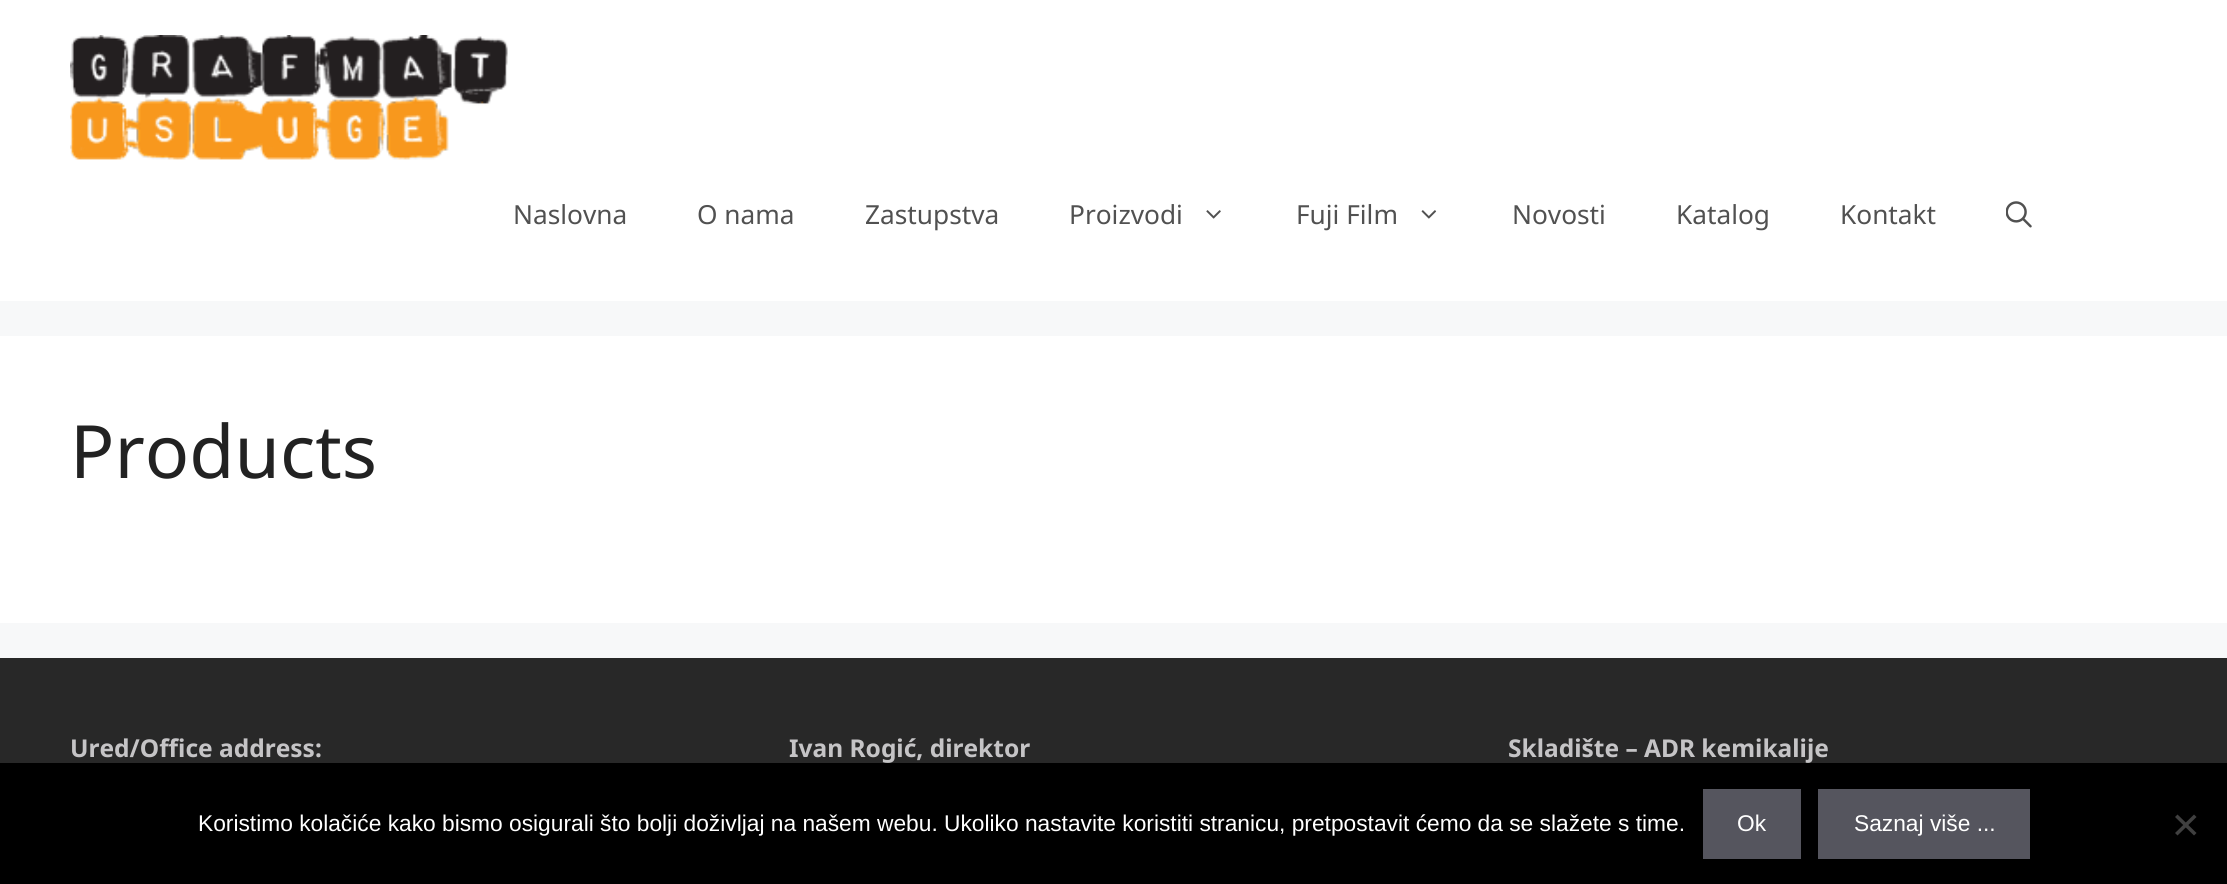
#include <cairo/cairo.h>
#include <math.h>
#include <stddef.h>


static void draw_image(cairo_t *cr, const char *path, double x, double y, double w, double h) {
  cairo_surface_t *image = cairo_image_surface_create_from_png(path);
  cairo_save(cr);
  cairo_set_source_surface(cr, image, x, y);
  cairo_rectangle(cr, x, y, w, h);
  cairo_fill(cr);
  cairo_restore(cr);
  cairo_surface_destroy(image);
}

static void draw(cairo_t *cr) {
  cairo_set_source_rgb(cr, 247 / 255.0, 248 / 255.0, 249 / 255.0);
  cairo_paint(cr);
  cairo_set_source_rgb(cr, 1, 1, 1);
  cairo_rectangle(cr, 0, 0, 2227, 301);
  cairo_fill(cr);
  draw_image(cr, "images/1.png", 70, 35, 438, 125);
  draw_image(cr, "images/2.png", 1206, 210, 15, 9);
  draw_image(cr, "images/3.png", 1421, 210, 16, 9);
  draw_image(cr, "images/4.png", 2006, 201, 26, 27);
  cairo_rectangle(cr, 0, 336, 2227, 287);
  cairo_fill(cr);
  cairo_set_source_rgb(cr, 40 / 255.0, 40 / 255.0, 40 / 255.0);
  cairo_rectangle(cr, 0, 658, 2227, 105);
  cairo_fill(cr);
  cairo_set_source_rgb(cr, 0, 0, 0);
  cairo_rectangle(cr, 0, 763, 2227, 121);
  cairo_fill(cr);
  cairo_set_source_rgb(cr, 85 / 255.0, 85 / 255.0, 94 / 255.0);
  cairo_rectangle(cr, 1703, 789, 98, 70);
  cairo_fill(cr);
  cairo_rectangle(cr, 1818, 789, 212, 70);
  cairo_fill(cr);
  cairo_set_source_rgb(cr, 64 / 255.0, 64 / 255.0, 64 / 255.0);
  cairo_new_path(cr);
  cairo_move_to(cr, 2194, 814.5);
  cairo_line_to(cr, 2196.5, 817);
  cairo_line_to(cr, 2177.5, 835.5);
  cairo_line_to(cr, 2175, 833);
  cairo_close_path(cr);
  cairo_fill(cr);
  cairo_new_path(cr);
  cairo_move_to(cr, 2175, 817);
  cairo_line_to(cr, 2177.5, 814.5);
  cairo_line_to(cr, 2196.5, 833);
  cairo_line_to(cr, 2194, 835.5);
  cairo_close_path(cr);
  cairo_fill(cr);
  cairo_select_font_face(cr, "Noto Sans", CAIRO_FONT_SLANT_NORMAL, CAIRO_FONT_WEIGHT_NORMAL);
  cairo_set_font_size(cr, 26.25);
  cairo_set_source_rgb(cr, 81 / 255.0, 81 / 255.0, 81 / 255.0);
  cairo_move_to(cr, 513, 224);
  cairo_show_text(cr, "Naslovna");
  cairo_move_to(cr, 697, 224);
  cairo_show_text(cr, "O nama");
  cairo_move_to(cr, 865, 224);
  cairo_show_text(cr, "Zastupstva");
  cairo_move_to(cr, 1069, 224);
  cairo_show_text(cr, "Proizvodi");
  cairo_move_to(cr, 1296, 224);
  cairo_show_text(cr, "Fuji Film");
  cairo_move_to(cr, 1512, 224);
  cairo_show_text(cr, "Novosti");
  cairo_move_to(cr, 1676, 224);
  cairo_show_text(cr, "Katalog");
  cairo_move_to(cr, 1840, 224);
  cairo_show_text(cr, "Kontakt");
  cairo_set_font_size(cr, 73.5);
  cairo_set_source_rgb(cr, 34 / 255.0, 34 / 255.0, 34 / 255.0);
  cairo_move_to(cr, 70, 478);
  cairo_show_text(cr, "Products");
  cairo_select_font_face(cr, "Noto Sans", CAIRO_FONT_SLANT_NORMAL, CAIRO_FONT_WEIGHT_BOLD);
  cairo_set_font_size(cr, 24.5);
  cairo_set_source_rgb(cr, 197 / 255.0, 196 / 255.0, 198 / 255.0);
  cairo_move_to(cr, 70, 757);
  cairo_show_text(cr, "Ured/Office address:");
  cairo_move_to(cr, 789, 757);
  cairo_show_text(cr, "Ivan Rogić, direktor");
  cairo_move_to(cr, 1508, 757);
  cairo_show_text(cr, "Skladište – ADR kemikalije");
  cairo_select_font_face(cr, "Liberation Sans", CAIRO_FONT_SLANT_NORMAL, CAIRO_FONT_WEIGHT_NORMAL);
  cairo_set_font_size(cr, 22.75);
  cairo_set_source_rgb(cr, 1, 1, 1);
  cairo_move_to(cr, 198, 831);
  cairo_show_text(cr, "Koristimo kolačiće kako bismo osigurali što bolji doživljaj na našem webu. Ukoliko nastavite koristiti stranicu, pretpostavit ćemo da se slažete s time.");
  cairo_move_to(cr, 1737, 831);
  cairo_show_text(cr, "Ok");
  cairo_move_to(cr, 1854, 831);
  cairo_show_text(cr, "Saznaj više ...");
}

int main(void) {
  cairo_surface_t *surface = cairo_image_surface_create(CAIRO_FORMAT_RGB24, 2227, 884);
  cairo_t *cr = cairo_create(surface);
  cairo_font_options_t *options = cairo_font_options_create();
  cairo_font_options_set_hint_metrics(options, CAIRO_HINT_METRICS_OFF);
  cairo_font_options_set_hint_style(options, CAIRO_HINT_STYLE_NONE);
  cairo_set_font_options(cr, options);
  cairo_set_miter_limit(cr, 4);
  draw(cr);
  cairo_surface_write_to_png(surface, "out.png");
  cairo_font_options_destroy(options);
  cairo_destroy(cr);
  cairo_surface_destroy(surface);
  return 0;
}
